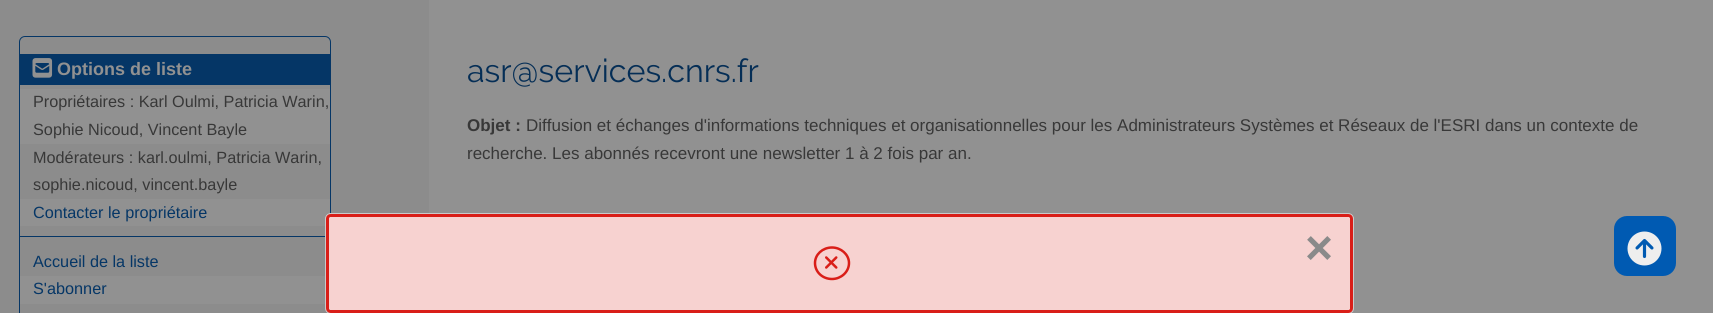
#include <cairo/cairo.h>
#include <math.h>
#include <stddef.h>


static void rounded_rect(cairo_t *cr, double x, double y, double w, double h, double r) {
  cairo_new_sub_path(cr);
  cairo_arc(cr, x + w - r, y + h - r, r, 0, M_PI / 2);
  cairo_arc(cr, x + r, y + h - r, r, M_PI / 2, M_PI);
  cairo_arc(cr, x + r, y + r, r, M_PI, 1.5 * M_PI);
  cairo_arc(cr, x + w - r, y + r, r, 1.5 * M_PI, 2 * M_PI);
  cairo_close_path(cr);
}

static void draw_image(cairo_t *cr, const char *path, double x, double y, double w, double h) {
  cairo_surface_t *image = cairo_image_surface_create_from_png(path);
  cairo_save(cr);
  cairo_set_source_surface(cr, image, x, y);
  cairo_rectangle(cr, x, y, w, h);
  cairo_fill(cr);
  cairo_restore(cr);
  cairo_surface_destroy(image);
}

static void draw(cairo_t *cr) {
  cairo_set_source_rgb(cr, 140 / 255.0, 140 / 255.0, 140 / 255.0);
  cairo_paint(cr);
  cairo_set_source_rgb(cr, 145 / 255.0, 145 / 255.0, 145 / 255.0);
  cairo_rectangle(cr, 429, 0, 1284, 313);
  cairo_fill(cr);
  rounded_rect(cr, 19.5, 36.5, 311, 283, 5.5);
  cairo_set_source_rgb(cr, 5 / 255.0, 54 / 255.0, 102 / 255.0);
  cairo_set_line_width(cr, 1);
  cairo_stroke(cr);
  cairo_rectangle(cr, 20, 54, 310, 31);
  cairo_fill(cr);
  draw_image(cr, "images/1.png", 32, 58, 21, 20);
  cairo_set_source_rgb(cr, 145 / 255.0, 145 / 255.0, 145 / 255.0);
  cairo_rectangle(cr, 20, 89, 310, 55);
  cairo_fill(cr);
  cairo_rectangle(cr, 20, 199, 310, 27);
  cairo_fill(cr);
  cairo_set_source_rgb(cr, 5 / 255.0, 54 / 255.0, 102 / 255.0);
  cairo_rectangle(cr, 20, 236, 310, 1);
  cairo_fill(cr);
  cairo_set_source_rgb(cr, 145 / 255.0, 145 / 255.0, 145 / 255.0);
  cairo_rectangle(cr, 20, 276, 305, 28);
  cairo_fill(cr);
  cairo_set_source_rgb(cr, 0, 90 / 255.0, 178 / 255.0);
  rounded_rect(cr, 1614, 216, 62, 60, 13);
  cairo_fill(cr);
  draw_image(cr, "images/2.png", 1627, 231, 35, 35);
  cairo_set_source_rgb(cr, 1, 1, 1);
  rounded_rect(cr, 325.5, 213.5, 1028, 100, 5.5);
  cairo_fill_preserve(cr);
  cairo_set_source_rgb(cr, 202 / 255.0, 202 / 255.0, 202 / 255.0);
  cairo_stroke(cr);
  cairo_set_source_rgba(cr, 217 / 255.0, 30 / 255.0, 24 / 255.0, 0.2);
  rounded_rect(cr, 326, 214, 1027, 99, 5);
  cairo_fill(cr);
  cairo_set_source_rgb(cr, 217 / 255.0, 30 / 255.0, 24 / 255.0);
  cairo_set_fill_rule(cr, CAIRO_FILL_RULE_EVEN_ODD);
  cairo_new_path(cr);
  cairo_move_to(cr, 331, 214);
  cairo_curve_to(cr, 328, 214, 326, 216, 326, 219);
  cairo_line_to(cr, 326, 308);
  cairo_curve_to(cr, 326, 311, 328, 313, 331, 313);
  cairo_line_to(cr, 1348, 313);
  cairo_curve_to(cr, 1351, 313, 1353, 311, 1353, 308);
  cairo_line_to(cr, 1353, 219);
  cairo_curve_to(cr, 1353, 216, 1351, 214, 1348, 214);
  cairo_close_path(cr);
  cairo_move_to(cr, 330, 217);
  cairo_line_to(cr, 329, 218);
  cairo_line_to(cr, 329, 309);
  cairo_line_to(cr, 330, 310);
  cairo_line_to(cr, 1349, 310);
  cairo_line_to(cr, 1350, 309);
  cairo_line_to(cr, 1350, 233);
  cairo_line_to(cr, 1350, 218);
  cairo_line_to(cr, 1349, 217);
  cairo_close_path(cr);
  cairo_fill(cr);
  cairo_new_path(cr);
  cairo_move_to(cr, 832, 247.5);
  cairo_curve_to(cr, 841, 247.5, 849, 254.5, 849, 263);
  cairo_curve_to(cr, 849, 272, 841, 279, 832, 279);
  cairo_curve_to(cr, 822.5, 279, 815, 272, 815, 263);
  cairo_curve_to(cr, 815, 254.5, 822.5, 247.5, 832, 247.5);
  cairo_close_path(cr);
  cairo_set_line_width(cr, 2.5);
  cairo_stroke(cr);
  draw_image(cr, "images/3.png", 825, 256, 13, 13);
  cairo_select_font_face(cr, "Liberation Sans", CAIRO_FONT_SLANT_NORMAL, CAIRO_FONT_WEIGHT_BOLD);
  cairo_set_font_size(cr, 18);
  cairo_set_source_rgb(cr, 145 / 255.0, 145 / 255.0, 145 / 255.0);
  cairo_move_to(cr, 57, 75);
  cairo_show_text(cr, "Options de liste");
  cairo_select_font_face(cr, "Liberation Sans", CAIRO_FONT_SLANT_NORMAL, CAIRO_FONT_WEIGHT_NORMAL);
  cairo_set_font_size(cr, 16.25);
  cairo_set_source_rgb(cr, 56 / 255.0, 56 / 255.0, 56 / 255.0);
  cairo_move_to(cr, 33, 107);
  cairo_show_text(cr, "Propriétaires : Karl Oulmi, Patricia Warin,");
  cairo_move_to(cr, 33, 135);
  cairo_show_text(cr, "Sophie Nicoud, Vincent Bayle");
  cairo_move_to(cr, 33, 163);
  cairo_show_text(cr, "Modérateurs : karl.oulmi, Patricia Warin,");
  cairo_move_to(cr, 33, 190);
  cairo_show_text(cr, "sophie.nicoud, vincent.bayle");
  cairo_set_source_rgb(cr, 5 / 255.0, 54 / 255.0, 102 / 255.0);
  cairo_move_to(cr, 33, 218);
  cairo_show_text(cr, "Contacter le propriétaire");
  cairo_move_to(cr, 33, 267);
  cairo_show_text(cr, "Accueil de la liste");
  cairo_move_to(cr, 33, 294);
  cairo_show_text(cr, "S'abonner");
  cairo_select_font_face(cr, "Raleway", CAIRO_FONT_SLANT_NORMAL, CAIRO_FONT_WEIGHT_NORMAL);
  cairo_set_font_size(cr, 32.25);
  cairo_set_source_rgb(cr, 5 / 255.0, 46 / 255.0, 86 / 255.0);
  cairo_move_to(cr, 467, 82);
  cairo_show_text(cr, "asr@services.cnrs.fr");
  cairo_select_font_face(cr, "Liberation Sans", CAIRO_FONT_SLANT_NORMAL, CAIRO_FONT_WEIGHT_BOLD);
  cairo_set_font_size(cr, 17);
  cairo_set_source_rgb(cr, 56 / 255.0, 56 / 255.0, 56 / 255.0);
  cairo_move_to(cr, 467, 131);
  cairo_show_text(cr, "Objet :");
  cairo_select_font_face(cr, "Liberation Sans", CAIRO_FONT_SLANT_NORMAL, CAIRO_FONT_WEIGHT_NORMAL);
  cairo_move_to(cr, 526, 131);
  cairo_show_text(cr, "Diffusion et échanges d'informations techniques et organisationnelles pour les Administrateurs Systèmes et Réseaux de l'ESRI dans un contexte de");
  cairo_move_to(cr, 467, 159);
  cairo_show_text(cr, "recherche. Les abonnés recevront une newsletter 1 à 2 fois par an.");
  cairo_select_font_face(cr, "Liberation Sans", CAIRO_FONT_SLANT_NORMAL, CAIRO_FONT_WEIGHT_BOLD);
  cairo_set_font_size(cr, 48);
  cairo_set_source_rgb(cr, 138 / 255.0, 138 / 255.0, 138 / 255.0);
  cairo_move_to(cr, 1305, 264);
  cairo_show_text(cr, "×");
}

int main(void) {
  cairo_surface_t *surface = cairo_image_surface_create(CAIRO_FORMAT_RGB24, 1713, 313);
  cairo_t *cr = cairo_create(surface);
  cairo_font_options_t *options = cairo_font_options_create();
  cairo_font_options_set_hint_metrics(options, CAIRO_HINT_METRICS_OFF);
  cairo_font_options_set_hint_style(options, CAIRO_HINT_STYLE_NONE);
  cairo_set_font_options(cr, options);
  cairo_set_miter_limit(cr, 4);
  draw(cr);
  cairo_surface_write_to_png(surface, "out.png");
  cairo_font_options_destroy(options);
  cairo_destroy(cr);
  cairo_surface_destroy(surface);
  return 0;
}
